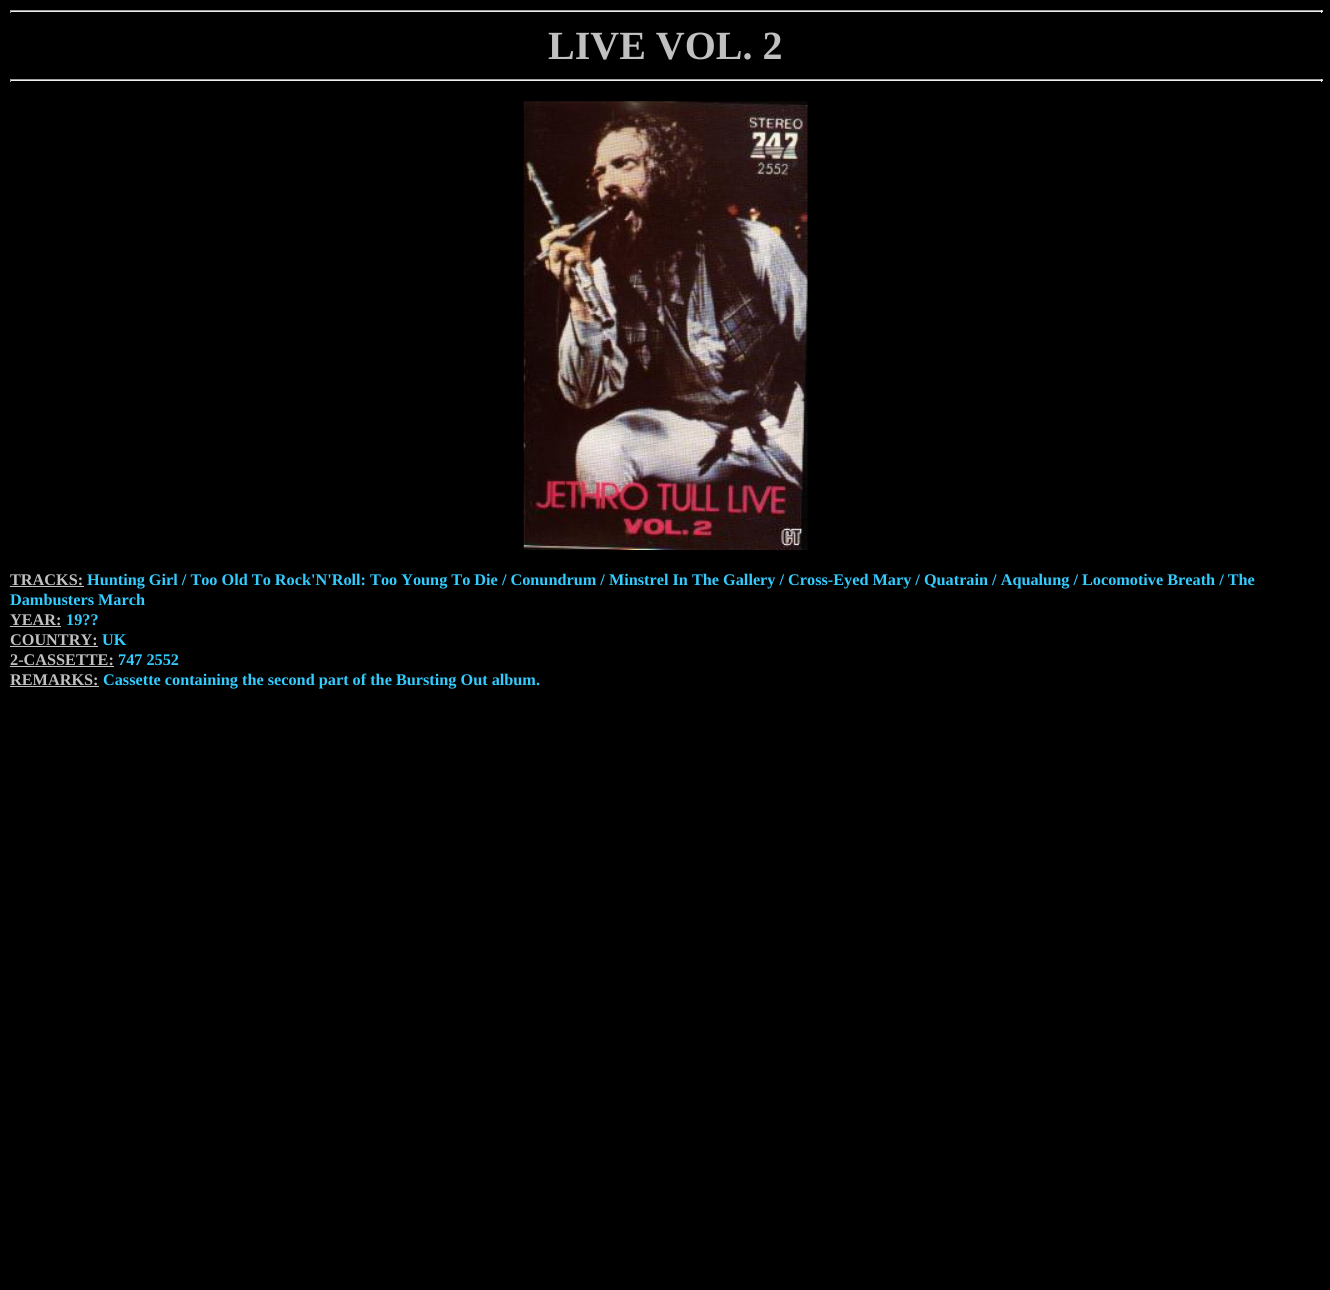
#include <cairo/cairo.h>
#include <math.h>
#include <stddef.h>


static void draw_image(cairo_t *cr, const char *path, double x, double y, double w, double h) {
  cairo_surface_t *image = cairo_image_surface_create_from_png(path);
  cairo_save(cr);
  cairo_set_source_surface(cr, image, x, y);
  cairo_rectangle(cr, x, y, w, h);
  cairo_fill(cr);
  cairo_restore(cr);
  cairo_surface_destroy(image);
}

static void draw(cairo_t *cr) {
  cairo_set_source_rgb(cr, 0, 0, 0);
  cairo_paint(cr);
  cairo_set_source_rgb(cr, 159 / 255.0, 159 / 255.0, 159 / 255.0);
  cairo_rectangle(cr, 10, 10, 1313, 1);
  cairo_fill(cr);
  cairo_set_source_rgb(cr, 238 / 255.0, 238 / 255.0, 238 / 255.0);
  cairo_rectangle(cr, 1321, 10, 1, 3);
  cairo_fill(cr);
  cairo_rectangle(cr, 10, 11, 1313, 1);
  cairo_fill(cr);
  cairo_set_source_rgb(cr, 159 / 255.0, 159 / 255.0, 159 / 255.0);
  cairo_rectangle(cr, 10, 10, 1, 3);
  cairo_fill(cr);
  cairo_rectangle(cr, 10, 79, 1313, 1);
  cairo_fill(cr);
  cairo_set_source_rgb(cr, 238 / 255.0, 238 / 255.0, 238 / 255.0);
  cairo_rectangle(cr, 1321, 79, 1, 3);
  cairo_fill(cr);
  cairo_rectangle(cr, 10, 80, 1313, 1);
  cairo_fill(cr);
  cairo_set_source_rgb(cr, 159 / 255.0, 159 / 255.0, 159 / 255.0);
  cairo_rectangle(cr, 10, 79, 1, 3);
  cairo_fill(cr);
  draw_image(cr, "images/1.png", 523, 101, 285, 449);
  cairo_set_source_rgb(cr, 192 / 255.0, 192 / 255.0, 192 / 255.0);
  cairo_rectangle(cr, 10, 586, 74, 1);
  cairo_fill(cr);
  cairo_rectangle(cr, 10, 626, 51, 1);
  cairo_fill(cr);
  cairo_rectangle(cr, 10, 646, 88, 1);
  cairo_fill(cr);
  cairo_rectangle(cr, 10, 666, 104, 1);
  cairo_fill(cr);
  cairo_rectangle(cr, 10, 686, 89, 1);
  cairo_fill(cr);
  cairo_select_font_face(cr, "Liberation Serif", CAIRO_FONT_SLANT_NORMAL, CAIRO_FONT_WEIGHT_BOLD);
  cairo_set_font_size(cr, 40);
  cairo_move_to(cr, 548, 59);
  cairo_show_text(cr, "LIVE VOL. 2");
  cairo_set_font_size(cr, 16.25);
  cairo_move_to(cr, 10, 585);
  cairo_show_text(cr, "TRACKS:");
  cairo_set_source_rgb(cr, 51 / 255.0, 204 / 255.0, 1);
  cairo_move_to(cr, 87, 585);
  cairo_show_text(cr, "Hunting Girl / Too Old To Rock'N'Roll: Too Young To Die / Conundrum / Minstrel In The Gallery / Cross-Eyed Mary / Quatrain / Aqualung / Locomotive Breath / The");
  cairo_move_to(cr, 10, 605);
  cairo_show_text(cr, "Dambusters March");
  cairo_set_source_rgb(cr, 192 / 255.0, 192 / 255.0, 192 / 255.0);
  cairo_move_to(cr, 10, 625);
  cairo_show_text(cr, "YEAR:");
  cairo_set_source_rgb(cr, 51 / 255.0, 204 / 255.0, 1);
  cairo_move_to(cr, 66, 625);
  cairo_show_text(cr, "19?\077");
  cairo_set_source_rgb(cr, 192 / 255.0, 192 / 255.0, 192 / 255.0);
  cairo_move_to(cr, 10, 645);
  cairo_show_text(cr, "COUNTRY:");
  cairo_set_source_rgb(cr, 51 / 255.0, 204 / 255.0, 1);
  cairo_move_to(cr, 102, 645);
  cairo_show_text(cr, "UK");
  cairo_set_source_rgb(cr, 192 / 255.0, 192 / 255.0, 192 / 255.0);
  cairo_move_to(cr, 10, 665);
  cairo_show_text(cr, "2-CASSETTE:");
  cairo_set_source_rgb(cr, 51 / 255.0, 204 / 255.0, 1);
  cairo_move_to(cr, 118, 665);
  cairo_show_text(cr, "747 2552");
  cairo_set_source_rgb(cr, 192 / 255.0, 192 / 255.0, 192 / 255.0);
  cairo_move_to(cr, 10, 685);
  cairo_show_text(cr, "REMARKS:");
  cairo_set_source_rgb(cr, 51 / 255.0, 204 / 255.0, 1);
  cairo_move_to(cr, 103, 685);
  cairo_show_text(cr, "Cassette containing the second part of the Bursting Out album.");
}

int main(void) {
  cairo_surface_t *surface = cairo_image_surface_create(CAIRO_FORMAT_RGB24, 1330, 1290);
  cairo_t *cr = cairo_create(surface);
  cairo_font_options_t *options = cairo_font_options_create();
  cairo_font_options_set_hint_metrics(options, CAIRO_HINT_METRICS_OFF);
  cairo_font_options_set_hint_style(options, CAIRO_HINT_STYLE_NONE);
  cairo_set_font_options(cr, options);
  cairo_set_miter_limit(cr, 4);
  draw(cr);
  cairo_surface_write_to_png(surface, "out.png");
  cairo_font_options_destroy(options);
  cairo_destroy(cr);
  cairo_surface_destroy(surface);
  return 0;
}
